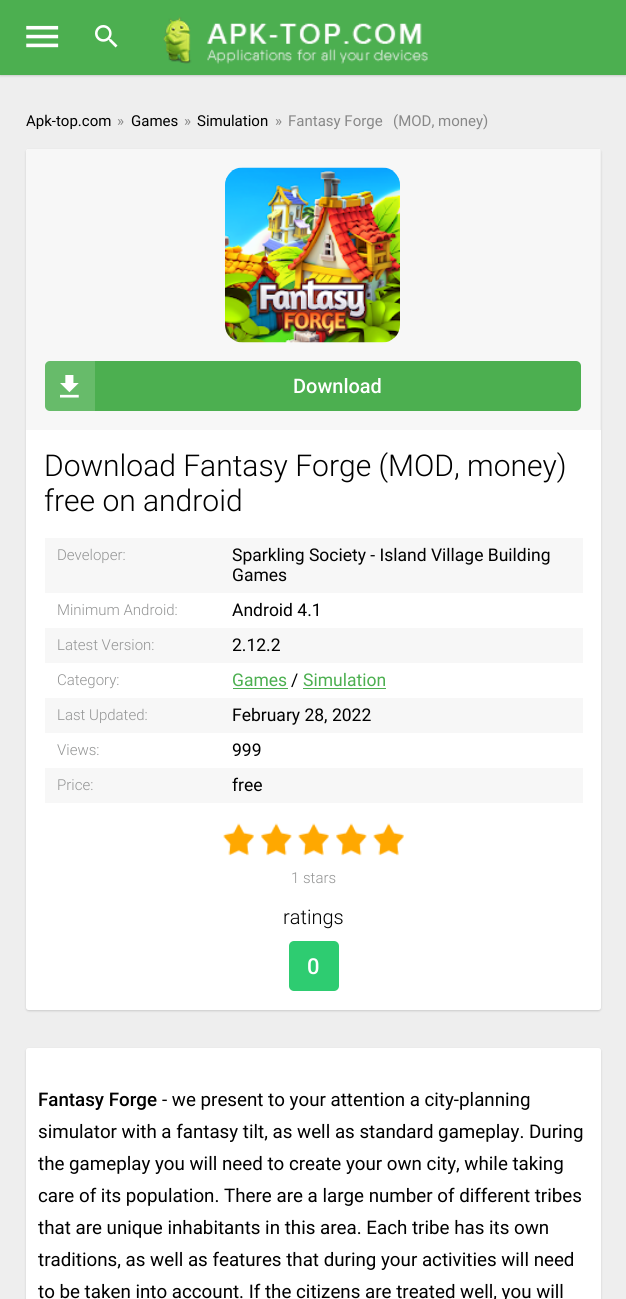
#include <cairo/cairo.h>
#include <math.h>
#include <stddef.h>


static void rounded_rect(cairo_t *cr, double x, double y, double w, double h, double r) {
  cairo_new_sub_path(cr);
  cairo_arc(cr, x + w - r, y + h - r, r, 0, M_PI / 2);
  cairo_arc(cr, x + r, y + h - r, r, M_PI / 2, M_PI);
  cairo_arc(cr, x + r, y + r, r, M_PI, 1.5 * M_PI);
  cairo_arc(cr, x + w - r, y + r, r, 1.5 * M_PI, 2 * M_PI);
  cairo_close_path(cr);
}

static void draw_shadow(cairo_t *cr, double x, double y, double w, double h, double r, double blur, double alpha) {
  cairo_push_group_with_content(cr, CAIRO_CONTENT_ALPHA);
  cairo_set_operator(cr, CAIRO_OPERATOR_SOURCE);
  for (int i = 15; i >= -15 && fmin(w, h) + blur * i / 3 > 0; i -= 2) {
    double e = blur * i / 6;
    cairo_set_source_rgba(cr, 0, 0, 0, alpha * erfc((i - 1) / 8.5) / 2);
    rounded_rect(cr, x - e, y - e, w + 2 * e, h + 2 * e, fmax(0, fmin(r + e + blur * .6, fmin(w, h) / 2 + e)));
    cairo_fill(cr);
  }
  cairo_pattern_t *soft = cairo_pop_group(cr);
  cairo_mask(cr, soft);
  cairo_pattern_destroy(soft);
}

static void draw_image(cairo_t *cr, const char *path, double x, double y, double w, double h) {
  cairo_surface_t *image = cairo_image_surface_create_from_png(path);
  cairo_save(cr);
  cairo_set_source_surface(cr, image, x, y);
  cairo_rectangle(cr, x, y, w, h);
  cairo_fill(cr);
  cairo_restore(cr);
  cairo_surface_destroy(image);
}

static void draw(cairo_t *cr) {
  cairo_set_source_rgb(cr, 238 / 255.0, 238 / 255.0, 238 / 255.0);
  cairo_paint(cr);
  cairo_set_source_rgb(cr, 0, 0, 0);
  draw_shadow(cr, 0, 1, 626, 75, 0, 1, 0.15);
  cairo_set_source_rgb(cr, 76 / 255.0, 175 / 255.0, 80 / 255.0);
  cairo_rectangle(cr, 0, 0, 626, 75);
  cairo_fill(cr);
  draw_image(cr, "images/1.png", 26, 25, 33, 23);
  draw_image(cr, "images/2.png", 95, 25, 23, 23);
  draw_image(cr, "images/3.png", 163, 17, 265, 47);
  cairo_set_source_rgb(cr, 0, 0, 0);
  draw_shadow(cr, 26, 150, 575, 861, 2.5, 1, 0.15);
  cairo_set_source_rgb(cr, 1, 1, 1);
  rounded_rect(cr, 26, 149, 575, 861, 2.5);
  cairo_fill(cr);
  cairo_set_source_rgb(cr, 247 / 255.0, 247 / 255.0, 247 / 255.0);
  cairo_new_path(cr);
  cairo_move_to(cr, 28.5, 149);
  cairo_line_to(cr, 598.5, 149);
  cairo_curve_to(cr, 600, 149, 601, 150, 601, 151.5);
  cairo_line_to(cr, 601, 430);
  cairo_line_to(cr, 26, 430);
  cairo_line_to(cr, 26, 151.5);
  cairo_curve_to(cr, 26, 150, 27, 149, 28.5, 149);
  cairo_close_path(cr);
  cairo_fill(cr);
  cairo_set_source_rgb(cr, 240 / 255.0, 240 / 255.0, 240 / 255.0);
  cairo_rectangle(cr, 600, 150, 1, 280);
  cairo_fill(cr);
  draw_image(cr, "images/4.png", 225, 167, 175, 176);
  cairo_set_source_rgb(cr, 76 / 255.0, 175 / 255.0, 80 / 255.0);
  rounded_rect(cr, 45, 361, 536, 50, 5);
  cairo_fill(cr);
  cairo_set_source_rgba(cr, 1, 1, 1, 0.15);
  cairo_new_path(cr);
  cairo_move_to(cr, 50, 361);
  cairo_line_to(cr, 95, 361);
  cairo_line_to(cr, 95, 411);
  cairo_line_to(cr, 50, 411);
  cairo_curve_to(cr, 47, 411, 45, 409, 45, 406);
  cairo_line_to(cr, 45, 366);
  cairo_curve_to(cr, 45, 363, 47, 361, 50, 361);
  cairo_close_path(cr);
  cairo_fill(cr);
  draw_image(cr, "images/5.png", 60, 375, 19, 23);
  cairo_set_source_rgb(cr, 247 / 255.0, 247 / 255.0, 247 / 255.0);
  cairo_rectangle(cr, 45, 538, 538, 55);
  cairo_fill(cr);
  cairo_rectangle(cr, 45, 628, 538, 35);
  cairo_fill(cr);
  cairo_set_source_rgb(cr, 76 / 255.0, 175 / 255.0, 80 / 255.0);
  cairo_rectangle(cr, 233, 688, 55, 1);
  cairo_fill(cr);
  cairo_rectangle(cr, 303, 688, 83, 1);
  cairo_fill(cr);
  cairo_set_source_rgb(cr, 247 / 255.0, 247 / 255.0, 247 / 255.0);
  cairo_rectangle(cr, 45, 698, 538, 35);
  cairo_fill(cr);
  cairo_rectangle(cr, 45, 768, 538, 35);
  cairo_fill(cr);
  draw_image(cr, "images/6.png", 223, 823, 181, 31);
  draw_image(cr, "images/7.png", 223, 824, 181, 32);
  cairo_set_source_rgb(cr, 46 / 255.0, 204 / 255.0, 113 / 255.0);
  rounded_rect(cr, 289, 941, 50, 50, 5);
  cairo_fill(cr);
  cairo_set_source_rgb(cr, 0, 0, 0);
  draw_shadow(cr, 26, 1049, 575, 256, 2.5, 1, 0.15);
  cairo_set_source_rgb(cr, 1, 1, 1);
  rounded_rect(cr, 26, 1048, 575, 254, 2.5);
  cairo_fill(cr);
  cairo_select_font_face(cr, "Roboto", CAIRO_FONT_SLANT_NORMAL, CAIRO_FONT_WEIGHT_NORMAL);
  cairo_set_font_size(cr, 15);
  cairo_set_source_rgb(cr, 0, 0, 0);
  cairo_move_to(cr, 26, 126);
  cairo_show_text(cr, "Apk-top.com");
  cairo_set_source_rgb(cr, 136 / 255.0, 136 / 255.0, 136 / 255.0);
  cairo_move_to(cr, 117, 126);
  cairo_show_text(cr, "»");
  cairo_set_source_rgb(cr, 0, 0, 0);
  cairo_move_to(cr, 131, 126);
  cairo_show_text(cr, "Games");
  cairo_set_source_rgb(cr, 136 / 255.0, 136 / 255.0, 136 / 255.0);
  cairo_move_to(cr, 184, 126);
  cairo_show_text(cr, "»");
  cairo_set_source_rgb(cr, 0, 0, 0);
  cairo_move_to(cr, 197, 126);
  cairo_show_text(cr, "Simulation");
  cairo_set_source_rgb(cr, 136 / 255.0, 136 / 255.0, 136 / 255.0);
  cairo_move_to(cr, 275, 126);
  cairo_show_text(cr, "»");
  cairo_move_to(cr, 288, 126);
  cairo_show_text(cr, "Fantasy Forge");
  cairo_move_to(cr, 393, 126);
  cairo_show_text(cr, "(MOD, money)");
  cairo_select_font_face(cr, "Roboto Medium", CAIRO_FONT_SLANT_NORMAL, CAIRO_FONT_WEIGHT_NORMAL);
  cairo_set_font_size(cr, 20);
  cairo_set_source_rgb(cr, 1, 1, 1);
  cairo_move_to(cr, 293, 393);
  cairo_show_text(cr, "Download");
  cairo_select_font_face(cr, "Roboto Light", CAIRO_FONT_SLANT_NORMAL, CAIRO_FONT_WEIGHT_NORMAL);
  cairo_set_font_size(cr, 30);
  cairo_set_source_rgb(cr, 0, 0, 0);
  cairo_move_to(cr, 44, 476);
  cairo_show_text(cr, "Download Fantasy Forge (MOD, money)");
  cairo_move_to(cr, 44, 511);
  cairo_show_text(cr, "free on android");
  cairo_set_font_size(cr, 15);
  cairo_set_source_rgb(cr, 147 / 255.0, 148 / 255.0, 148 / 255.0);
  cairo_move_to(cr, 57, 560);
  cairo_show_text(cr, "Developer:");
  cairo_select_font_face(cr, "Roboto", CAIRO_FONT_SLANT_NORMAL, CAIRO_FONT_WEIGHT_NORMAL);
  cairo_set_font_size(cr, 17.5);
  cairo_set_source_rgb(cr, 0, 0, 0);
  cairo_move_to(cr, 232, 561);
  cairo_show_text(cr, "Sparkling Society - Island Village Building");
  cairo_move_to(cr, 232, 581);
  cairo_show_text(cr, "Games");
  cairo_select_font_face(cr, "Roboto Light", CAIRO_FONT_SLANT_NORMAL, CAIRO_FONT_WEIGHT_NORMAL);
  cairo_set_font_size(cr, 15);
  cairo_set_source_rgb(cr, 147 / 255.0, 148 / 255.0, 148 / 255.0);
  cairo_move_to(cr, 57, 615);
  cairo_show_text(cr, "Minimum Android:");
  cairo_select_font_face(cr, "Roboto", CAIRO_FONT_SLANT_NORMAL, CAIRO_FONT_WEIGHT_NORMAL);
  cairo_set_font_size(cr, 17.5);
  cairo_set_source_rgb(cr, 0, 0, 0);
  cairo_move_to(cr, 232, 616);
  cairo_show_text(cr, "Android 4.1");
  cairo_select_font_face(cr, "Roboto Light", CAIRO_FONT_SLANT_NORMAL, CAIRO_FONT_WEIGHT_NORMAL);
  cairo_set_font_size(cr, 15);
  cairo_set_source_rgb(cr, 147 / 255.0, 148 / 255.0, 148 / 255.0);
  cairo_move_to(cr, 57, 650);
  cairo_show_text(cr, "Latest Version:");
  cairo_select_font_face(cr, "Roboto", CAIRO_FONT_SLANT_NORMAL, CAIRO_FONT_WEIGHT_NORMAL);
  cairo_set_font_size(cr, 17.5);
  cairo_set_source_rgb(cr, 0, 0, 0);
  cairo_move_to(cr, 232, 651);
  cairo_show_text(cr, "2.12.2");
  cairo_select_font_face(cr, "Roboto Light", CAIRO_FONT_SLANT_NORMAL, CAIRO_FONT_WEIGHT_NORMAL);
  cairo_set_font_size(cr, 15);
  cairo_set_source_rgb(cr, 147 / 255.0, 148 / 255.0, 148 / 255.0);
  cairo_move_to(cr, 57, 685);
  cairo_show_text(cr, "Category:");
  cairo_select_font_face(cr, "Roboto", CAIRO_FONT_SLANT_NORMAL, CAIRO_FONT_WEIGHT_NORMAL);
  cairo_set_font_size(cr, 17.5);
  cairo_set_source_rgb(cr, 76 / 255.0, 175 / 255.0, 80 / 255.0);
  cairo_move_to(cr, 232, 686);
  cairo_show_text(cr, "Games");
  cairo_set_source_rgb(cr, 0, 0, 0);
  cairo_move_to(cr, 291, 686);
  cairo_show_text(cr, "/");
  cairo_set_source_rgb(cr, 76 / 255.0, 175 / 255.0, 80 / 255.0);
  cairo_move_to(cr, 303, 686);
  cairo_show_text(cr, "Simulation");
  cairo_select_font_face(cr, "Roboto Light", CAIRO_FONT_SLANT_NORMAL, CAIRO_FONT_WEIGHT_NORMAL);
  cairo_set_font_size(cr, 15);
  cairo_set_source_rgb(cr, 147 / 255.0, 148 / 255.0, 148 / 255.0);
  cairo_move_to(cr, 57, 720);
  cairo_show_text(cr, "Last Updated:");
  cairo_select_font_face(cr, "Roboto", CAIRO_FONT_SLANT_NORMAL, CAIRO_FONT_WEIGHT_NORMAL);
  cairo_set_font_size(cr, 17.5);
  cairo_set_source_rgb(cr, 0, 0, 0);
  cairo_move_to(cr, 232, 721);
  cairo_show_text(cr, "February 28, 2022");
  cairo_select_font_face(cr, "Roboto Light", CAIRO_FONT_SLANT_NORMAL, CAIRO_FONT_WEIGHT_NORMAL);
  cairo_set_font_size(cr, 15);
  cairo_set_source_rgb(cr, 147 / 255.0, 148 / 255.0, 148 / 255.0);
  cairo_move_to(cr, 57, 755);
  cairo_show_text(cr, "Views:");
  cairo_select_font_face(cr, "Roboto", CAIRO_FONT_SLANT_NORMAL, CAIRO_FONT_WEIGHT_NORMAL);
  cairo_set_font_size(cr, 17.5);
  cairo_set_source_rgb(cr, 0, 0, 0);
  cairo_move_to(cr, 232, 756);
  cairo_show_text(cr, "999");
  cairo_select_font_face(cr, "Roboto Light", CAIRO_FONT_SLANT_NORMAL, CAIRO_FONT_WEIGHT_NORMAL);
  cairo_set_font_size(cr, 15);
  cairo_set_source_rgb(cr, 147 / 255.0, 148 / 255.0, 148 / 255.0);
  cairo_move_to(cr, 57, 790);
  cairo_show_text(cr, "Price:");
  cairo_select_font_face(cr, "Roboto", CAIRO_FONT_SLANT_NORMAL, CAIRO_FONT_WEIGHT_NORMAL);
  cairo_set_font_size(cr, 17.5);
  cairo_set_source_rgb(cr, 0, 0, 0);
  cairo_move_to(cr, 232, 791);
  cairo_show_text(cr, "free");
  cairo_select_font_face(cr, "Roboto Light", CAIRO_FONT_SLANT_NORMAL, CAIRO_FONT_WEIGHT_NORMAL);
  cairo_set_font_size(cr, 15);
  cairo_set_source_rgb(cr, 147 / 255.0, 148 / 255.0, 148 / 255.0);
  cairo_move_to(cr, 291, 883);
  cairo_show_text(cr, "1 stars");
  cairo_set_font_size(cr, 20);
  cairo_set_source_rgb(cr, 0, 0, 0);
  cairo_move_to(cr, 283, 924);
  cairo_show_text(cr, "ratings");
  cairo_select_font_face(cr, "Roboto Medium", CAIRO_FONT_SLANT_NORMAL, CAIRO_FONT_WEIGHT_NORMAL);
  cairo_set_font_size(cr, 22);
  cairo_set_source_rgb(cr, 1, 1, 1);
  cairo_move_to(cr, 307, 974);
  cairo_show_text(cr, "0");
  cairo_set_font_size(cr, 18.75);
  cairo_set_source_rgb(cr, 0, 0, 0);
  cairo_move_to(cr, 38, 1106);
  cairo_show_text(cr, "Fantasy Forge");
  cairo_select_font_face(cr, "Roboto", CAIRO_FONT_SLANT_NORMAL, CAIRO_FONT_WEIGHT_NORMAL);
  cairo_move_to(cr, 162, 1106);
  cairo_show_text(cr, "- we present to your attention a city-planning");
  cairo_move_to(cr, 38, 1138);
  cairo_show_text(cr, "simulator with a fantasy tilt, as well as standard gameplay. During");
  cairo_move_to(cr, 38, 1170);
  cairo_show_text(cr, "the gameplay you will need to create your own city, while taking");
  cairo_move_to(cr, 38, 1202);
  cairo_show_text(cr, "care of its population. There are a large number of different tribes");
  cairo_move_to(cr, 38, 1234);
  cairo_show_text(cr, "that are unique inhabitants in this area. Each tribe has its own");
  cairo_move_to(cr, 38, 1266);
  cairo_show_text(cr, "traditions, as well as features that during your activities will need");
  cairo_move_to(cr, 38, 1298);
  cairo_show_text(cr, "to be taken into account. If the citizens are treated well, you will");
}

int main(void) {
  cairo_surface_t *surface = cairo_image_surface_create(CAIRO_FORMAT_RGB24, 626, 1299);
  cairo_t *cr = cairo_create(surface);
  cairo_font_options_t *options = cairo_font_options_create();
  cairo_font_options_set_hint_metrics(options, CAIRO_HINT_METRICS_OFF);
  cairo_font_options_set_hint_style(options, CAIRO_HINT_STYLE_NONE);
  cairo_set_font_options(cr, options);
  cairo_set_miter_limit(cr, 4);
  draw(cr);
  cairo_surface_write_to_png(surface, "out.png");
  cairo_font_options_destroy(options);
  cairo_destroy(cr);
  cairo_surface_destroy(surface);
  return 0;
}
